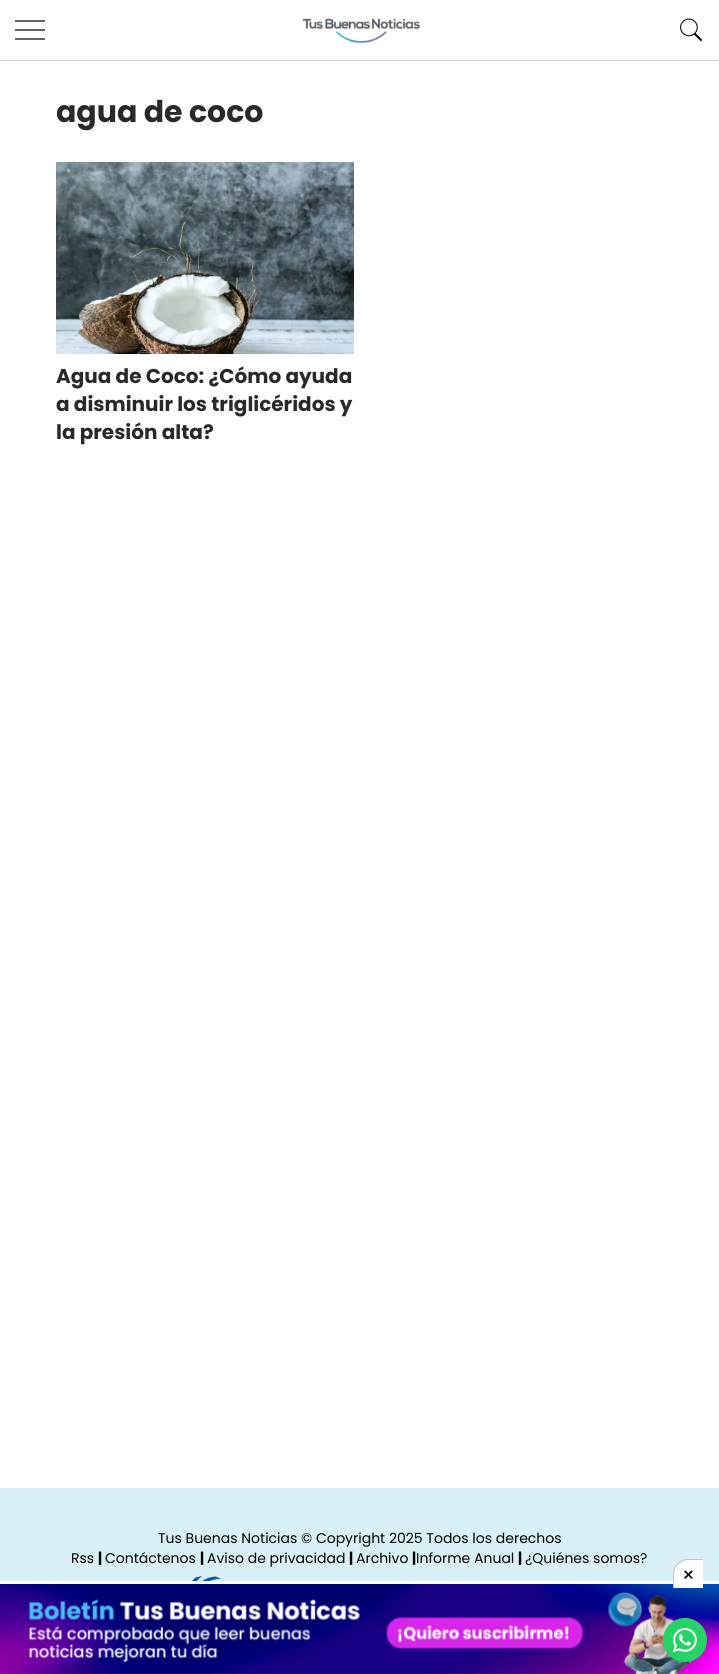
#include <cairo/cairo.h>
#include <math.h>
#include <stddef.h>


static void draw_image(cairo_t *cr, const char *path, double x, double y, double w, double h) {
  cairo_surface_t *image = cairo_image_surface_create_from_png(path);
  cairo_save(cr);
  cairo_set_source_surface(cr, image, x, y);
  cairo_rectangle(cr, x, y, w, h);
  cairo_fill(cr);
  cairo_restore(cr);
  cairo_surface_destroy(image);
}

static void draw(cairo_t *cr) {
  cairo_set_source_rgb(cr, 1, 1, 1);
  cairo_paint(cr);
  cairo_set_source_rgb(cr, 204 / 255.0, 204 / 255.0, 204 / 255.0);
  cairo_rectangle(cr, 0, 60, 719, 1);
  cairo_fill(cr);
  draw_image(cr, "images/1.png", 15, 20, 30, 20);
  draw_image(cr, "images/2.png", 302, 18, 118, 26);
  draw_image(cr, "images/3.png", 680, 18, 23, 24);
  draw_image(cr, "images/4.png", 56, 162, 298, 192);
  cairo_set_source_rgb(cr, 216 / 255.0, 240 / 255.0, 246 / 255.0);
  cairo_rectangle(cr, 0, 1488, 719, 186);
  cairo_fill(cr);
  draw_image(cr, "images/5.png", 192, 1576, 29, 5);
  cairo_set_source_rgb(cr, 1, 1, 1);
  cairo_rectangle(cr, 0, 1581, 719, 3);
  cairo_fill(cr);
  draw_image(cr, "images/6.png", 0, 1584, 719, 90);
  cairo_new_path(cr);
  cairo_move_to(cr, 688, 1560);
  cairo_line_to(cr, 703, 1560);
  cairo_line_to(cr, 703, 1588);
  cairo_line_to(cr, 674, 1588);
  cairo_line_to(cr, 674, 1574);
  cairo_curve_to(cr, 674, 1566.5, 680.5, 1560, 688, 1560);
  cairo_close_path(cr);
  cairo_fill(cr);
  cairo_set_source_rgb(cr, 199 / 255.0, 195 / 255.0, 195 / 255.0);
  cairo_set_fill_rule(cr, CAIRO_FILL_RULE_EVEN_ODD);
  cairo_new_path(cr);
  cairo_move_to(cr, 688, 1559);
  cairo_line_to(cr, 703, 1559);
  cairo_line_to(cr, 703, 1588);
  cairo_line_to(cr, 673, 1588);
  cairo_line_to(cr, 673, 1574);
  cairo_curve_to(cr, 673, 1565.5, 679.5, 1559, 688, 1559);
  cairo_close_path(cr);
  cairo_move_to(cr, 688, 1560);
  cairo_line_to(cr, 703, 1560);
  cairo_line_to(cr, 703, 1588);
  cairo_line_to(cr, 674, 1588);
  cairo_line_to(cr, 674, 1574);
  cairo_curve_to(cr, 674, 1566.5, 680.5, 1560, 688, 1560);
  cairo_close_path(cr);
  cairo_fill(cr);
  cairo_set_source_rgb(cr, 37 / 255.0, 211 / 255.0, 102 / 255.0);
  cairo_arc(cr, 685, 1640, 22, 0, 2 * M_PI);
  cairo_fill(cr);
  draw_image(cr, "images/7.png", 673, 1628, 24, 24);
  cairo_select_font_face(cr, "Poppins", CAIRO_FONT_SLANT_NORMAL, CAIRO_FONT_WEIGHT_BOLD);
  cairo_set_font_size(cr, 30);
  cairo_set_source_rgb(cr, 41 / 255.0, 41 / 255.0, 41 / 255.0);
  cairo_move_to(cr, 56, 122);
  cairo_show_text(cr, "agua de coco");
  cairo_set_font_size(cr, 20);
  cairo_move_to(cr, 56, 383);
  cairo_show_text(cr, "Agua de Coco: ¿Cómo ayuda");
  cairo_move_to(cr, 56, 411);
  cairo_show_text(cr, "a disminuir los triglicéridos y");
  cairo_move_to(cr, 56, 439);
  cairo_show_text(cr, "la presión alta?");
  cairo_select_font_face(cr, "Poppins", CAIRO_FONT_SLANT_NORMAL, CAIRO_FONT_WEIGHT_NORMAL);
  cairo_set_font_size(cr, 14);
  cairo_set_source_rgb(cr, 0, 0, 0);
  cairo_move_to(cr, 158, 1543);
  cairo_show_text(cr, "Tus Buenas Noticias © Copyright 2025 Todos los derechos");
  cairo_move_to(cr, 71, 1563);
  cairo_show_text(cr, "Rss");
  cairo_select_font_face(cr, "Poppins", CAIRO_FONT_SLANT_NORMAL, CAIRO_FONT_WEIGHT_BOLD);
  cairo_move_to(cr, 98, 1563);
  cairo_show_text(cr, "|");
  cairo_select_font_face(cr, "Poppins", CAIRO_FONT_SLANT_NORMAL, CAIRO_FONT_WEIGHT_NORMAL);
  cairo_move_to(cr, 105, 1563);
  cairo_show_text(cr, "Contáctenos");
  cairo_select_font_face(cr, "Poppins", CAIRO_FONT_SLANT_NORMAL, CAIRO_FONT_WEIGHT_BOLD);
  cairo_move_to(cr, 200, 1563);
  cairo_show_text(cr, "|");
  cairo_select_font_face(cr, "Poppins", CAIRO_FONT_SLANT_NORMAL, CAIRO_FONT_WEIGHT_NORMAL);
  cairo_move_to(cr, 207, 1563);
  cairo_show_text(cr, "Aviso de privacidad");
  cairo_select_font_face(cr, "Poppins", CAIRO_FONT_SLANT_NORMAL, CAIRO_FONT_WEIGHT_BOLD);
  cairo_move_to(cr, 349, 1563);
  cairo_show_text(cr, "|");
  cairo_select_font_face(cr, "Poppins", CAIRO_FONT_SLANT_NORMAL, CAIRO_FONT_WEIGHT_NORMAL);
  cairo_move_to(cr, 356, 1563);
  cairo_show_text(cr, "Archivo");
  cairo_select_font_face(cr, "Poppins", CAIRO_FONT_SLANT_NORMAL, CAIRO_FONT_WEIGHT_BOLD);
  cairo_move_to(cr, 412, 1563);
  cairo_show_text(cr, "|");
  cairo_select_font_face(cr, "Poppins", CAIRO_FONT_SLANT_NORMAL, CAIRO_FONT_WEIGHT_NORMAL);
  cairo_move_to(cr, 416, 1563);
  cairo_show_text(cr, "Informe Anual");
  cairo_select_font_face(cr, "Poppins", CAIRO_FONT_SLANT_NORMAL, CAIRO_FONT_WEIGHT_BOLD);
  cairo_move_to(cr, 518, 1563);
  cairo_show_text(cr, "|");
  cairo_select_font_face(cr, "Poppins", CAIRO_FONT_SLANT_NORMAL, CAIRO_FONT_WEIGHT_NORMAL);
  cairo_move_to(cr, 525, 1563);
  cairo_show_text(cr, "¿Quiénes somos?");
  cairo_set_font_size(cr, 20);
  cairo_move_to(cr, 682, 1582);
  cairo_show_text(cr, "×");
}

int main(void) {
  cairo_surface_t *surface = cairo_image_surface_create(CAIRO_FORMAT_RGB24, 719, 1674);
  cairo_t *cr = cairo_create(surface);
  cairo_font_options_t *options = cairo_font_options_create();
  cairo_font_options_set_hint_metrics(options, CAIRO_HINT_METRICS_OFF);
  cairo_font_options_set_hint_style(options, CAIRO_HINT_STYLE_NONE);
  cairo_set_font_options(cr, options);
  cairo_set_miter_limit(cr, 4);
  draw(cr);
  cairo_surface_write_to_png(surface, "out.png");
  cairo_font_options_destroy(options);
  cairo_destroy(cr);
  cairo_surface_destroy(surface);
  return 0;
}
